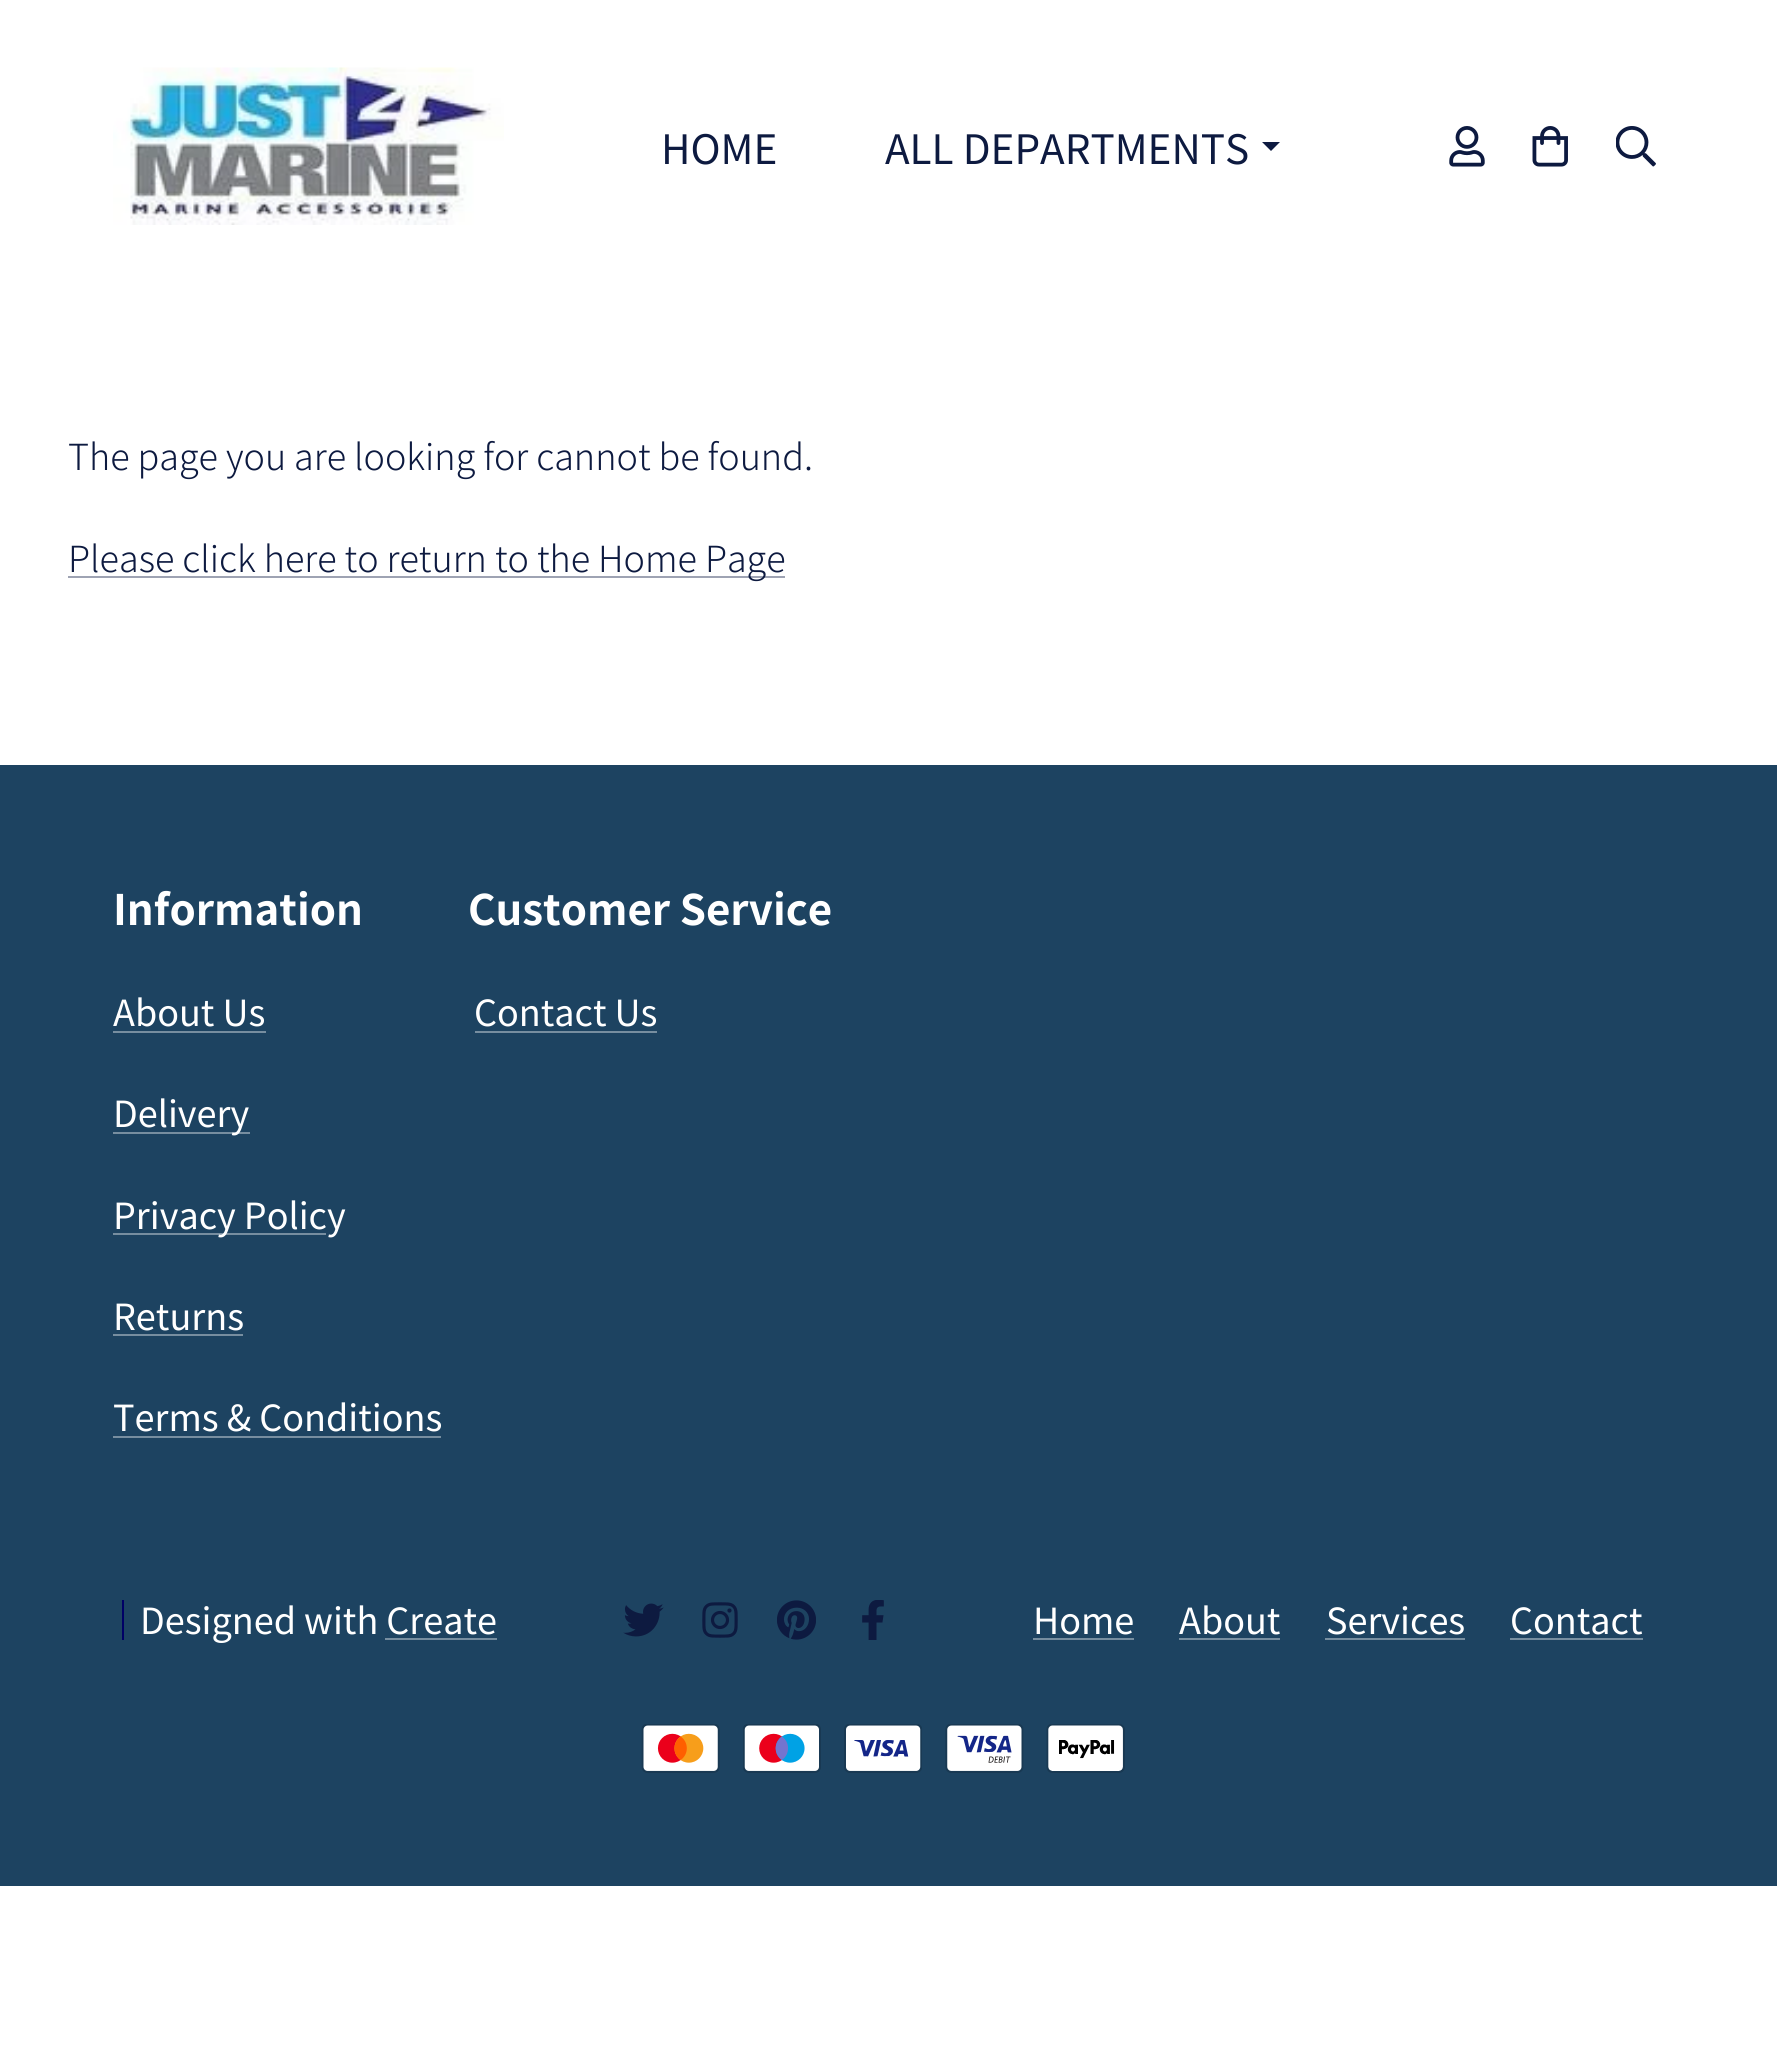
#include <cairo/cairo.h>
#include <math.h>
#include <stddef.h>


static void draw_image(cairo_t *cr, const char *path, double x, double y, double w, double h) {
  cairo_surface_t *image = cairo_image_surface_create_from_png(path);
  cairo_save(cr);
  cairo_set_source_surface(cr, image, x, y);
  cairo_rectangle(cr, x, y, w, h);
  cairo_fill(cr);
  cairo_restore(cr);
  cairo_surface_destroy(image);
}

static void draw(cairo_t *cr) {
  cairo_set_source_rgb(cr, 1, 1, 1);
  cairo_paint(cr);
  draw_image(cr, "images/1.png", 113, 67, 391, 158);
  cairo_set_source_rgb(cr, 13 / 255.0, 26 / 255.0, 64 / 255.0);
  cairo_new_path(cr);
  cairo_move_to(cr, 1262, 142);
  cairo_line_to(cr, 1280, 142);
  cairo_line_to(cr, 1271, 151);
  cairo_close_path(cr);
  cairo_fill(cr);
  draw_image(cr, "images/2.png", 1449, 126, 36, 41);
  draw_image(cr, "images/3.png", 1532, 126, 36, 41);
  draw_image(cr, "images/4.png", 1616, 126, 40, 41);
  cairo_set_source_rgb(cr, 158 / 255.0, 163 / 255.0, 179 / 255.0);
  cairo_rectangle(cr, 68, 576, 717, 2);
  cairo_fill(cr);
  cairo_set_source_rgb(cr, 29 / 255.0, 67 / 255.0, 97 / 255.0);
  cairo_rectangle(cr, 0, 765, 1777, 1121);
  cairo_fill(cr);
  cairo_set_source_rgb(cr, 119 / 255.0, 142 / 255.0, 160 / 255.0);
  cairo_rectangle(cr, 113, 1031, 153, 2);
  cairo_fill(cr);
  cairo_rectangle(cr, 475, 1031, 182, 2);
  cairo_fill(cr);
  cairo_rectangle(cr, 113, 1132, 137, 2);
  cairo_fill(cr);
  cairo_rectangle(cr, 113, 1233, 213, 2);
  cairo_fill(cr);
  cairo_rectangle(cr, 113, 1334, 130, 2);
  cairo_fill(cr);
  cairo_rectangle(cr, 113, 1436, 328, 2);
  cairo_fill(cr);
  cairo_set_source_rgb(cr, 0, 0, 102 / 255.0);
  cairo_rectangle(cr, 122, 1600, 2, 40);
  cairo_fill(cr);
  draw_image(cr, "images/5.png", 623, 1603, 41, 34);
  draw_image(cr, "images/6.png", 702, 1602, 36, 36);
  draw_image(cr, "images/7.png", 777, 1600, 39, 40);
  draw_image(cr, "images/8.png", 862, 1600, 22, 40);
  cairo_set_source_rgb(cr, 119 / 255.0, 142 / 255.0, 160 / 255.0);
  cairo_rectangle(cr, 1033, 1638, 101, 2);
  cairo_fill(cr);
  cairo_rectangle(cr, 1179, 1638, 101, 2);
  cairo_fill(cr);
  cairo_rectangle(cr, 1325, 1638, 140, 2);
  cairo_fill(cr);
  cairo_rectangle(cr, 1510, 1638, 133, 2);
  cairo_fill(cr);
  draw_image(cr, "images/9.png", 641, 1724, 79, 49);
  draw_image(cr, "images/10.png", 743, 1724, 78, 49);
  draw_image(cr, "images/11.png", 844, 1724, 78, 49);
  draw_image(cr, "images/12.png", 945, 1724, 79, 49);
  draw_image(cr, "images/13.png", 1046, 1724, 79, 49);
  cairo_select_font_face(cr, "Noto Sans JP", CAIRO_FONT_SLANT_NORMAL, CAIRO_FONT_WEIGHT_NORMAL);
  cairo_set_font_size(cr, 40.5);
  cairo_set_source_rgb(cr, 13 / 255.0, 26 / 255.0, 64 / 255.0);
  cairo_move_to(cr, 661, 164);
  cairo_show_text(cr, "HOME");
  cairo_move_to(cr, 885, 164);
  cairo_show_text(cr, "ALL DEPARTMENTS");
  cairo_select_font_face(cr, "Noto Sans JP Light", CAIRO_FONT_SLANT_NORMAL, CAIRO_FONT_WEIGHT_NORMAL);
  cairo_set_font_size(cr, 36);
  cairo_move_to(cr, 68, 470);
  cairo_show_text(cr, "The page you are looking for cannot be found.");
  cairo_move_to(cr, 68, 572);
  cairo_show_text(cr, "Please click here to return to the Home Page");
  cairo_select_font_face(cr, "Noto Sans JP", CAIRO_FONT_SLANT_NORMAL, CAIRO_FONT_WEIGHT_BOLD);
  cairo_set_font_size(cr, 42);
  cairo_set_source_rgb(cr, 1, 1, 1);
  cairo_move_to(cr, 113, 925);
  cairo_show_text(cr, "Information           Customer Service");
  cairo_select_font_face(cr, "Noto Sans JP", CAIRO_FONT_SLANT_NORMAL, CAIRO_FONT_WEIGHT_NORMAL);
  cairo_set_font_size(cr, 36);
  cairo_move_to(cr, 113, 1026);
  cairo_show_text(cr, "About Us");
  cairo_move_to(cr, 474, 1026);
  cairo_show_text(cr, "Contact Us");
  cairo_move_to(cr, 113, 1127);
  cairo_show_text(cr, "Delivery");
  cairo_move_to(cr, 113, 1229);
  cairo_show_text(cr, "Privacy Policy");
  cairo_move_to(cr, 113, 1330);
  cairo_show_text(cr, "Returns");
  cairo_move_to(cr, 113, 1431);
  cairo_show_text(cr, "Terms & Conditions");
  cairo_move_to(cr, 140, 1634);
  cairo_show_text(cr, "Designed with Create");
  cairo_set_source_rgb(cr, 119 / 255.0, 142 / 255.0, 160 / 255.0);
  cairo_rectangle(cr, 385, 1638, 112, 2);
  cairo_fill(cr);
  cairo_set_source_rgb(cr, 1, 1, 1);
  cairo_move_to(cr, 1033, 1634);
  cairo_show_text(cr, "Home");
  cairo_move_to(cr, 1179, 1634);
  cairo_show_text(cr, "About");
  cairo_move_to(cr, 1326, 1634);
  cairo_show_text(cr, "Services");
  cairo_move_to(cr, 1510, 1634);
  cairo_show_text(cr, "Contact");
}

int main(void) {
  cairo_surface_t *surface = cairo_image_surface_create(CAIRO_FORMAT_RGB24, 1777, 2060);
  cairo_t *cr = cairo_create(surface);
  cairo_font_options_t *options = cairo_font_options_create();
  cairo_font_options_set_hint_metrics(options, CAIRO_HINT_METRICS_OFF);
  cairo_font_options_set_hint_style(options, CAIRO_HINT_STYLE_NONE);
  cairo_set_font_options(cr, options);
  cairo_set_miter_limit(cr, 4);
  draw(cr);
  cairo_surface_write_to_png(surface, "out.png");
  cairo_font_options_destroy(options);
  cairo_destroy(cr);
  cairo_surface_destroy(surface);
  return 0;
}
